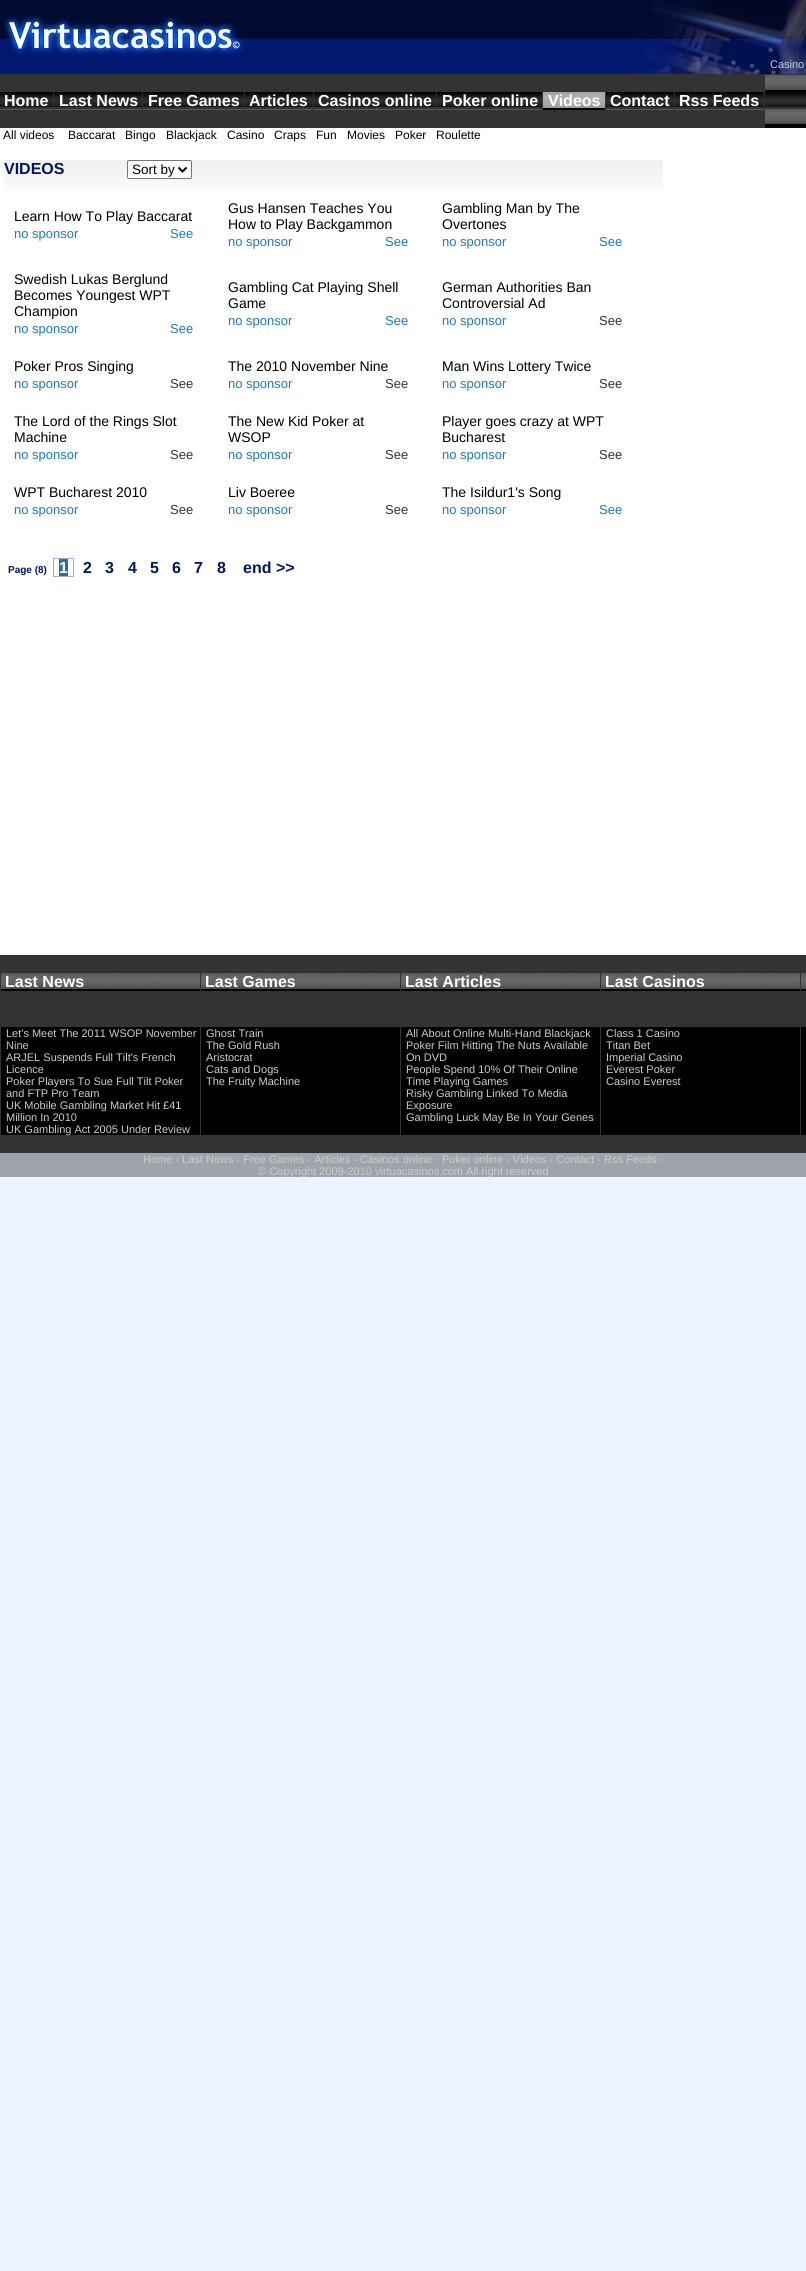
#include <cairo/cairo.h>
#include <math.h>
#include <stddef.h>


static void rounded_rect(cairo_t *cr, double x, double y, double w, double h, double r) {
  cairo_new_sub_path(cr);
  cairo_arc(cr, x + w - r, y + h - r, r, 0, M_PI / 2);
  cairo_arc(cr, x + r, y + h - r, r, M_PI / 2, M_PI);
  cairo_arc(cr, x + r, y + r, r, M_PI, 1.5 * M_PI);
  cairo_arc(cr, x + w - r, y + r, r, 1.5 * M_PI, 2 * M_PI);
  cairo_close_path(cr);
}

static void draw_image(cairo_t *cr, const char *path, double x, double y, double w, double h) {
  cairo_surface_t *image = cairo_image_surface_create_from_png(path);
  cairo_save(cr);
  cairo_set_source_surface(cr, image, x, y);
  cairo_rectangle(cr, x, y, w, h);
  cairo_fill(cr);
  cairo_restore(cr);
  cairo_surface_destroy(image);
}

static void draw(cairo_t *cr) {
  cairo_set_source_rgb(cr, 234 / 255.0, 243 / 255.0, 1);
  cairo_paint(cr);
  cairo_set_source_rgb(cr, 159 / 255.0, 163 / 255.0, 172 / 255.0);
  cairo_rectangle(cr, 0, 1153, 806, 24);
  cairo_fill(cr);
  draw_image(cr, "images/1.png", 0, 0, 806, 74);
  draw_image(cr, "images/2.png", 0, 74, 806, 54);
  cairo_set_source_rgb(cr, 51 / 255.0, 51 / 255.0, 51 / 255.0);
  cairo_rectangle(cr, 0, 75, 765, 17);
  cairo_fill(cr);
  cairo_rectangle(cr, 53, 92, 1, 18);
  cairo_fill(cr);
  cairo_rectangle(cr, 142, 92, 1, 18);
  cairo_fill(cr);
  cairo_rectangle(cr, 244, 92, 1, 18);
  cairo_fill(cr);
  cairo_rectangle(cr, 313, 92, 1, 18);
  cairo_fill(cr);
  cairo_rectangle(cr, 436, 92, 1, 18);
  cairo_fill(cr);
  cairo_rectangle(cr, 542, 92, 1, 18);
  cairo_fill(cr);
  draw_image(cr, "images/3.png", 543, 92, 62, 18);
  cairo_rectangle(cr, 605, 92, 1, 18);
  cairo_fill(cr);
  cairo_rectangle(cr, 674, 92, 1, 18);
  cairo_fill(cr);
  cairo_rectangle(cr, 764, 92, 1, 18);
  cairo_fill(cr);
  cairo_rectangle(cr, 0, 110, 765, 18);
  cairo_fill(cr);
  cairo_set_source_rgb(cr, 1, 1, 1);
  cairo_rectangle(cr, 0, 128, 806, 827);
  cairo_fill(cr);
  draw_image(cr, "images/4.png", 4, 160, 659, 31);
  rounded_rect(cr, 127.5, 160.5, 64, 18, 1.5);
  cairo_fill_preserve(cr);
  cairo_set_source_rgb(cr, 118 / 255.0, 118 / 255.0, 118 / 255.0);
  cairo_set_line_width(cr, 1);
  cairo_stroke(cr);
  cairo_new_path(cr);
  cairo_move_to(cr, 178.5, 167.5);
  cairo_line_to(cr, 182.5, 171.5);
  cairo_line_to(cr, 186.5, 167.5);
  cairo_set_source_rgb(cr, 0, 0, 0);
  cairo_set_line_width(cr, 2);
  cairo_stroke(cr);
  cairo_rectangle(cr, 53.5, 558.5, 20, 18);
  cairo_set_source_rgb(cr, 154 / 255.0, 175 / 255.0, 229 / 255.0);
  cairo_set_line_width(cr, 1);
  cairo_stroke(cr);
  cairo_set_source_rgb(cr, 46 / 255.0, 106 / 255.0, 177 / 255.0);
  cairo_rectangle(cr, 59, 559, 9, 17);
  cairo_fill(cr);
  cairo_set_source_rgb(cr, 51 / 255.0, 51 / 255.0, 51 / 255.0);
  cairo_rectangle(cr, 0, 955, 806, 18);
  cairo_fill(cr);
  cairo_rectangle(cr, 0, 973, 1, 18);
  cairo_fill(cr);
  draw_image(cr, "images/5.png", 1, 973, 199, 18);
  cairo_rectangle(cr, 200, 973, 1, 18);
  cairo_fill(cr);
  draw_image(cr, "images/6.png", 201, 973, 199, 18);
  cairo_rectangle(cr, 400, 973, 1, 18);
  cairo_fill(cr);
  draw_image(cr, "images/6.png", 401, 973, 199, 18);
  cairo_rectangle(cr, 600, 973, 1, 18);
  cairo_fill(cr);
  draw_image(cr, "images/6.png", 601, 973, 199, 18);
  cairo_rectangle(cr, 800, 973, 1, 18);
  cairo_fill(cr);
  draw_image(cr, "images/7.png", 801, 973, 5, 18);
  cairo_rectangle(cr, 0, 991, 806, 36);
  cairo_fill(cr);
  cairo_rectangle(cr, 0, 1027, 1, 108);
  cairo_fill(cr);
  cairo_set_source_rgb(cr, 0, 0, 0);
  cairo_rectangle(cr, 1, 1027, 199, 108);
  cairo_fill(cr);
  cairo_set_source_rgb(cr, 51 / 255.0, 51 / 255.0, 51 / 255.0);
  cairo_rectangle(cr, 200, 1027, 1, 108);
  cairo_fill(cr);
  cairo_set_source_rgb(cr, 0, 0, 0);
  cairo_rectangle(cr, 201, 1027, 199, 108);
  cairo_fill(cr);
  cairo_set_source_rgb(cr, 51 / 255.0, 51 / 255.0, 51 / 255.0);
  cairo_rectangle(cr, 400, 1027, 1, 108);
  cairo_fill(cr);
  cairo_set_source_rgb(cr, 0, 0, 0);
  cairo_rectangle(cr, 401, 1027, 199, 108);
  cairo_fill(cr);
  cairo_set_source_rgb(cr, 51 / 255.0, 51 / 255.0, 51 / 255.0);
  cairo_rectangle(cr, 600, 1027, 1, 108);
  cairo_fill(cr);
  cairo_set_source_rgb(cr, 0, 0, 0);
  cairo_rectangle(cr, 601, 1027, 199, 108);
  cairo_fill(cr);
  cairo_set_source_rgb(cr, 51 / 255.0, 51 / 255.0, 51 / 255.0);
  cairo_rectangle(cr, 800, 1027, 1, 108);
  cairo_fill(cr);
  cairo_set_source_rgb(cr, 0, 0, 0);
  cairo_rectangle(cr, 801, 1027, 5, 108);
  cairo_fill(cr);
  cairo_set_source_rgb(cr, 51 / 255.0, 51 / 255.0, 51 / 255.0);
  cairo_rectangle(cr, 0, 1135, 806, 18);
  cairo_fill(cr);
  cairo_select_font_face(cr, "Liberation Sans", CAIRO_FONT_SLANT_NORMAL, CAIRO_FONT_WEIGHT_NORMAL);
  cairo_set_font_size(cr, 11);
  cairo_set_source_rgb(cr, 204 / 255.0, 204 / 255.0, 204 / 255.0);
  cairo_move_to(cr, 770, 68);
  cairo_show_text(cr, "Casino");
  cairo_select_font_face(cr, "Liberation Sans", CAIRO_FONT_SLANT_NORMAL, CAIRO_FONT_WEIGHT_BOLD);
  cairo_set_font_size(cr, 16);
  cairo_set_source_rgb(cr, 1, 1, 1);
  cairo_move_to(cr, 4, 106);
  cairo_show_text(cr, "Home");
  cairo_move_to(cr, 59, 106);
  cairo_show_text(cr, "Last News");
  cairo_move_to(cr, 148, 106);
  cairo_show_text(cr, "Free Games");
  cairo_move_to(cr, 249, 106);
  cairo_show_text(cr, "Articles");
  cairo_move_to(cr, 318, 106);
  cairo_show_text(cr, "Casinos online");
  cairo_move_to(cr, 442, 106);
  cairo_show_text(cr, "Poker online");
  cairo_move_to(cr, 548, 106);
  cairo_show_text(cr, "Videos");
  cairo_move_to(cr, 610, 106);
  cairo_show_text(cr, "Contact");
  cairo_move_to(cr, 679, 106);
  cairo_show_text(cr, "Rss Feeds");
  cairo_select_font_face(cr, "Liberation Sans", CAIRO_FONT_SLANT_NORMAL, CAIRO_FONT_WEIGHT_NORMAL);
  cairo_set_font_size(cr, 12);
  cairo_set_source_rgb(cr, 0, 0, 0);
  cairo_move_to(cr, 3, 139);
  cairo_show_text(cr, "All videos");
  cairo_move_to(cr, 68, 139);
  cairo_show_text(cr, "Baccarat");
  cairo_move_to(cr, 125, 139);
  cairo_show_text(cr, "Bingo");
  cairo_move_to(cr, 166, 139);
  cairo_show_text(cr, "Blackjack");
  cairo_move_to(cr, 227, 139);
  cairo_show_text(cr, "Casino");
  cairo_move_to(cr, 274, 139);
  cairo_show_text(cr, "Craps");
  cairo_move_to(cr, 316, 139);
  cairo_show_text(cr, "Fun");
  cairo_move_to(cr, 347, 139);
  cairo_show_text(cr, "Movies");
  cairo_move_to(cr, 395, 139);
  cairo_show_text(cr, "Poker");
  cairo_move_to(cr, 436, 139);
  cairo_show_text(cr, "Roulette");
  cairo_select_font_face(cr, "Liberation Sans", CAIRO_FONT_SLANT_NORMAL, CAIRO_FONT_WEIGHT_BOLD);
  cairo_set_font_size(cr, 16);
  cairo_set_source_rgb(cr, 0, 22 / 255.0, 102 / 255.0);
  cairo_move_to(cr, 4, 174);
  cairo_show_text(cr, "VIDEOS");
  cairo_select_font_face(cr, "Liberation Sans", CAIRO_FONT_SLANT_NORMAL, CAIRO_FONT_WEIGHT_NORMAL);
  cairo_set_font_size(cr, 13.5);
  cairo_set_source_rgb(cr, 0, 0, 0);
  cairo_move_to(cr, 132, 174);
  cairo_show_text(cr, "Sort by");
  cairo_set_font_size(cr, 14);
  cairo_move_to(cr, 14, 221);
  cairo_show_text(cr, "Learn How To Play Baccarat");
  cairo_set_font_size(cr, 13);
  cairo_set_source_rgb(cr, 20 / 255.0, 120 / 255.0, 229 / 255.0);
  cairo_move_to(cr, 14, 238);
  cairo_show_text(cr, "no sponsor");
  cairo_move_to(cr, 170, 238);
  cairo_show_text(cr, "See");
  cairo_set_font_size(cr, 14);
  cairo_set_source_rgb(cr, 0, 0, 0);
  cairo_move_to(cr, 228, 213);
  cairo_show_text(cr, "Gus Hansen Teaches You");
  cairo_move_to(cr, 228, 229);
  cairo_show_text(cr, "How to Play Backgammon");
  cairo_set_font_size(cr, 13);
  cairo_set_source_rgb(cr, 20 / 255.0, 120 / 255.0, 229 / 255.0);
  cairo_move_to(cr, 228, 246);
  cairo_show_text(cr, "no sponsor");
  cairo_move_to(cr, 385, 246);
  cairo_show_text(cr, "See");
  cairo_set_font_size(cr, 14);
  cairo_set_source_rgb(cr, 0, 0, 0);
  cairo_move_to(cr, 442, 213);
  cairo_show_text(cr, "Gambling Man by The");
  cairo_move_to(cr, 442, 229);
  cairo_show_text(cr, "Overtones");
  cairo_set_font_size(cr, 13);
  cairo_set_source_rgb(cr, 20 / 255.0, 120 / 255.0, 229 / 255.0);
  cairo_move_to(cr, 442, 246);
  cairo_show_text(cr, "no sponsor");
  cairo_move_to(cr, 599, 246);
  cairo_show_text(cr, "See");
  cairo_set_font_size(cr, 14);
  cairo_set_source_rgb(cr, 0, 0, 0);
  cairo_move_to(cr, 14, 284);
  cairo_show_text(cr, "Swedish Lukas Berglund");
  cairo_move_to(cr, 14, 300);
  cairo_show_text(cr, "Becomes Youngest WPT");
  cairo_move_to(cr, 14, 316);
  cairo_show_text(cr, "Champion");
  cairo_set_font_size(cr, 13);
  cairo_set_source_rgb(cr, 20 / 255.0, 120 / 255.0, 229 / 255.0);
  cairo_move_to(cr, 14, 333);
  cairo_show_text(cr, "no sponsor");
  cairo_move_to(cr, 170, 333);
  cairo_show_text(cr, "See");
  cairo_set_font_size(cr, 14);
  cairo_set_source_rgb(cr, 0, 0, 0);
  cairo_move_to(cr, 228, 292);
  cairo_show_text(cr, "Gambling Cat Playing Shell");
  cairo_move_to(cr, 228, 308);
  cairo_show_text(cr, "Game");
  cairo_set_font_size(cr, 13);
  cairo_set_source_rgb(cr, 20 / 255.0, 120 / 255.0, 229 / 255.0);
  cairo_move_to(cr, 228, 325);
  cairo_show_text(cr, "no sponsor");
  cairo_move_to(cr, 385, 325);
  cairo_show_text(cr, "See");
  cairo_set_font_size(cr, 14);
  cairo_set_source_rgb(cr, 0, 0, 0);
  cairo_move_to(cr, 442, 292);
  cairo_show_text(cr, "German Authorities Ban");
  cairo_move_to(cr, 442, 308);
  cairo_show_text(cr, "Controversial Ad");
  cairo_set_font_size(cr, 13);
  cairo_set_source_rgb(cr, 20 / 255.0, 120 / 255.0, 229 / 255.0);
  cairo_move_to(cr, 442, 325);
  cairo_show_text(cr, "no sponsor");
  cairo_set_source_rgb(cr, 51 / 255.0, 51 / 255.0, 51 / 255.0);
  cairo_move_to(cr, 599, 325);
  cairo_show_text(cr, "See");
  cairo_set_font_size(cr, 14);
  cairo_set_source_rgb(cr, 0, 0, 0);
  cairo_move_to(cr, 14, 371);
  cairo_show_text(cr, "Poker Pros Singing");
  cairo_set_font_size(cr, 13);
  cairo_set_source_rgb(cr, 20 / 255.0, 120 / 255.0, 229 / 255.0);
  cairo_move_to(cr, 14, 388);
  cairo_show_text(cr, "no sponsor");
  cairo_set_source_rgb(cr, 51 / 255.0, 51 / 255.0, 51 / 255.0);
  cairo_move_to(cr, 170, 388);
  cairo_show_text(cr, "See");
  cairo_set_font_size(cr, 14);
  cairo_set_source_rgb(cr, 0, 0, 0);
  cairo_move_to(cr, 228, 371);
  cairo_show_text(cr, "The 2010 November Nine");
  cairo_set_font_size(cr, 13);
  cairo_set_source_rgb(cr, 20 / 255.0, 120 / 255.0, 229 / 255.0);
  cairo_move_to(cr, 228, 388);
  cairo_show_text(cr, "no sponsor");
  cairo_set_source_rgb(cr, 51 / 255.0, 51 / 255.0, 51 / 255.0);
  cairo_move_to(cr, 385, 388);
  cairo_show_text(cr, "See");
  cairo_set_font_size(cr, 14);
  cairo_set_source_rgb(cr, 0, 0, 0);
  cairo_move_to(cr, 442, 371);
  cairo_show_text(cr, "Man Wins Lottery Twice");
  cairo_set_font_size(cr, 13);
  cairo_set_source_rgb(cr, 20 / 255.0, 120 / 255.0, 229 / 255.0);
  cairo_move_to(cr, 442, 388);
  cairo_show_text(cr, "no sponsor");
  cairo_set_source_rgb(cr, 51 / 255.0, 51 / 255.0, 51 / 255.0);
  cairo_move_to(cr, 599, 388);
  cairo_show_text(cr, "See");
  cairo_set_font_size(cr, 14);
  cairo_set_source_rgb(cr, 0, 0, 0);
  cairo_move_to(cr, 14, 426);
  cairo_show_text(cr, "The Lord of the Rings Slot");
  cairo_move_to(cr, 14, 442);
  cairo_show_text(cr, "Machine");
  cairo_set_font_size(cr, 13);
  cairo_set_source_rgb(cr, 20 / 255.0, 120 / 255.0, 229 / 255.0);
  cairo_move_to(cr, 14, 459);
  cairo_show_text(cr, "no sponsor");
  cairo_set_source_rgb(cr, 51 / 255.0, 51 / 255.0, 51 / 255.0);
  cairo_move_to(cr, 170, 459);
  cairo_show_text(cr, "See");
  cairo_set_font_size(cr, 14);
  cairo_set_source_rgb(cr, 0, 0, 0);
  cairo_move_to(cr, 228, 426);
  cairo_show_text(cr, "The New Kid Poker at");
  cairo_move_to(cr, 228, 442);
  cairo_show_text(cr, "WSOP");
  cairo_set_font_size(cr, 13);
  cairo_set_source_rgb(cr, 20 / 255.0, 120 / 255.0, 229 / 255.0);
  cairo_move_to(cr, 228, 459);
  cairo_show_text(cr, "no sponsor");
  cairo_set_source_rgb(cr, 51 / 255.0, 51 / 255.0, 51 / 255.0);
  cairo_move_to(cr, 385, 459);
  cairo_show_text(cr, "See");
  cairo_set_font_size(cr, 14);
  cairo_set_source_rgb(cr, 0, 0, 0);
  cairo_move_to(cr, 442, 426);
  cairo_show_text(cr, "Player goes crazy at WPT");
  cairo_move_to(cr, 442, 442);
  cairo_show_text(cr, "Bucharest");
  cairo_set_font_size(cr, 13);
  cairo_set_source_rgb(cr, 20 / 255.0, 120 / 255.0, 229 / 255.0);
  cairo_move_to(cr, 442, 459);
  cairo_show_text(cr, "no sponsor");
  cairo_set_source_rgb(cr, 51 / 255.0, 51 / 255.0, 51 / 255.0);
  cairo_move_to(cr, 599, 459);
  cairo_show_text(cr, "See");
  cairo_set_font_size(cr, 14);
  cairo_set_source_rgb(cr, 0, 0, 0);
  cairo_move_to(cr, 14, 497);
  cairo_show_text(cr, "WPT Bucharest 2010");
  cairo_set_font_size(cr, 13);
  cairo_set_source_rgb(cr, 20 / 255.0, 120 / 255.0, 229 / 255.0);
  cairo_move_to(cr, 14, 514);
  cairo_show_text(cr, "no sponsor");
  cairo_set_source_rgb(cr, 51 / 255.0, 51 / 255.0, 51 / 255.0);
  cairo_move_to(cr, 170, 514);
  cairo_show_text(cr, "See");
  cairo_set_font_size(cr, 14);
  cairo_set_source_rgb(cr, 0, 0, 0);
  cairo_move_to(cr, 228, 497);
  cairo_show_text(cr, "Liv Boeree");
  cairo_set_font_size(cr, 13);
  cairo_set_source_rgb(cr, 20 / 255.0, 120 / 255.0, 229 / 255.0);
  cairo_move_to(cr, 228, 514);
  cairo_show_text(cr, "no sponsor");
  cairo_set_source_rgb(cr, 51 / 255.0, 51 / 255.0, 51 / 255.0);
  cairo_move_to(cr, 385, 514);
  cairo_show_text(cr, "See");
  cairo_set_font_size(cr, 14);
  cairo_set_source_rgb(cr, 0, 0, 0);
  cairo_move_to(cr, 442, 497);
  cairo_show_text(cr, "The Isildur1's Song");
  cairo_set_font_size(cr, 13);
  cairo_set_source_rgb(cr, 20 / 255.0, 120 / 255.0, 229 / 255.0);
  cairo_move_to(cr, 442, 514);
  cairo_show_text(cr, "no sponsor");
  cairo_move_to(cr, 599, 514);
  cairo_show_text(cr, "See");
  cairo_select_font_face(cr, "Liberation Sans", CAIRO_FONT_SLANT_NORMAL, CAIRO_FONT_WEIGHT_BOLD);
  cairo_set_font_size(cr, 10);
  cairo_set_source_rgb(cr, 0, 22 / 255.0, 102 / 255.0);
  cairo_move_to(cr, 8, 573);
  cairo_show_text(cr, "Page (8)");
  cairo_set_font_size(cr, 16);
  cairo_set_source_rgb(cr, 1, 1, 1);
  cairo_move_to(cr, 59, 573);
  cairo_show_text(cr, "1");
  cairo_set_source_rgb(cr, 0, 22 / 255.0, 102 / 255.0);
  cairo_move_to(cr, 83, 573);
  cairo_show_text(cr, "2");
  cairo_move_to(cr, 105, 573);
  cairo_show_text(cr, "3");
  cairo_move_to(cr, 128, 573);
  cairo_show_text(cr, "4");
  cairo_move_to(cr, 150, 573);
  cairo_show_text(cr, "5");
  cairo_move_to(cr, 172, 573);
  cairo_show_text(cr, "6");
  cairo_move_to(cr, 194, 573);
  cairo_show_text(cr, "7");
  cairo_move_to(cr, 217, 573);
  cairo_show_text(cr, "8");
  cairo_move_to(cr, 243, 573);
  cairo_show_text(cr, "end >>");
  cairo_set_source_rgb(cr, 1, 1, 1);
  cairo_move_to(cr, 5, 987);
  cairo_show_text(cr, "Last News");
  cairo_move_to(cr, 205, 987);
  cairo_show_text(cr, "Last Games");
  cairo_move_to(cr, 405, 987);
  cairo_show_text(cr, "Last Articles");
  cairo_move_to(cr, 605, 987);
  cairo_show_text(cr, "Last Casinos");
  cairo_select_font_face(cr, "Liberation Sans", CAIRO_FONT_SLANT_NORMAL, CAIRO_FONT_WEIGHT_NORMAL);
  cairo_set_font_size(cr, 11);
  cairo_set_source_rgb(cr, 204 / 255.0, 204 / 255.0, 204 / 255.0);
  cairo_move_to(cr, 6, 1037);
  cairo_show_text(cr, "Let's Meet The 2011 WSOP November");
  cairo_move_to(cr, 6, 1049);
  cairo_show_text(cr, "Nine");
  cairo_move_to(cr, 6, 1061);
  cairo_show_text(cr, "ARJEL Suspends Full Tilt's French");
  cairo_move_to(cr, 6, 1073);
  cairo_show_text(cr, "Licence");
  cairo_move_to(cr, 6, 1085);
  cairo_show_text(cr, "Poker Players To Sue Full Tilt Poker");
  cairo_move_to(cr, 6, 1097);
  cairo_show_text(cr, "and FTP Pro Team");
  cairo_move_to(cr, 6, 1109);
  cairo_show_text(cr, "UK Mobile Gambling Market Hit £41");
  cairo_move_to(cr, 6, 1121);
  cairo_show_text(cr, "Million In 2010");
  cairo_move_to(cr, 6, 1133);
  cairo_show_text(cr, "UK Gambling Act 2005 Under Review");
  cairo_move_to(cr, 206, 1037);
  cairo_show_text(cr, "Ghost Train");
  cairo_move_to(cr, 206, 1049);
  cairo_show_text(cr, "The Gold Rush");
  cairo_move_to(cr, 206, 1061);
  cairo_show_text(cr, "Aristocrat");
  cairo_move_to(cr, 206, 1073);
  cairo_show_text(cr, "Cats and Dogs");
  cairo_move_to(cr, 206, 1085);
  cairo_show_text(cr, "The Fruity Machine");
  cairo_move_to(cr, 406, 1037);
  cairo_show_text(cr, "All About Online Multi-Hand Blackjack");
  cairo_move_to(cr, 406, 1049);
  cairo_show_text(cr, "Poker Film Hitting The Nuts Available");
  cairo_move_to(cr, 406, 1061);
  cairo_show_text(cr, "On DVD");
  cairo_move_to(cr, 406, 1073);
  cairo_show_text(cr, "People Spend 10% Of Their Online");
  cairo_move_to(cr, 406, 1085);
  cairo_show_text(cr, "Time Playing Games");
  cairo_move_to(cr, 406, 1097);
  cairo_show_text(cr, "Risky Gambling Linked To Media");
  cairo_move_to(cr, 406, 1109);
  cairo_show_text(cr, "Exposure");
  cairo_move_to(cr, 406, 1121);
  cairo_show_text(cr, "Gambling Luck May Be In Your Genes");
  cairo_move_to(cr, 606, 1037);
  cairo_show_text(cr, "Class 1 Casino");
  cairo_move_to(cr, 606, 1049);
  cairo_show_text(cr, "Titan Bet");
  cairo_move_to(cr, 606, 1061);
  cairo_show_text(cr, "Imperial Casino");
  cairo_move_to(cr, 606, 1073);
  cairo_show_text(cr, "Everest Poker");
  cairo_move_to(cr, 606, 1085);
  cairo_show_text(cr, "Casino Everest");
  cairo_move_to(cr, 143, 1163);
  cairo_show_text(cr, "Home - Last News - Free Games - Articles - Casinos online - Poker online - Videos - Contact - Rss Feeds -");
  cairo_move_to(cr, 258, 1175);
  cairo_show_text(cr, "© Copyright 2009-2010 virtuacasinos.com All right reserved");
}

int main(void) {
  cairo_surface_t *surface = cairo_image_surface_create(CAIRO_FORMAT_RGB24, 806, 2271);
  cairo_t *cr = cairo_create(surface);
  cairo_font_options_t *options = cairo_font_options_create();
  cairo_font_options_set_hint_metrics(options, CAIRO_HINT_METRICS_OFF);
  cairo_font_options_set_hint_style(options, CAIRO_HINT_STYLE_NONE);
  cairo_set_font_options(cr, options);
  cairo_set_miter_limit(cr, 4);
  draw(cr);
  cairo_surface_write_to_png(surface, "out.png");
  cairo_font_options_destroy(options);
  cairo_destroy(cr);
  cairo_surface_destroy(surface);
  return 0;
}
